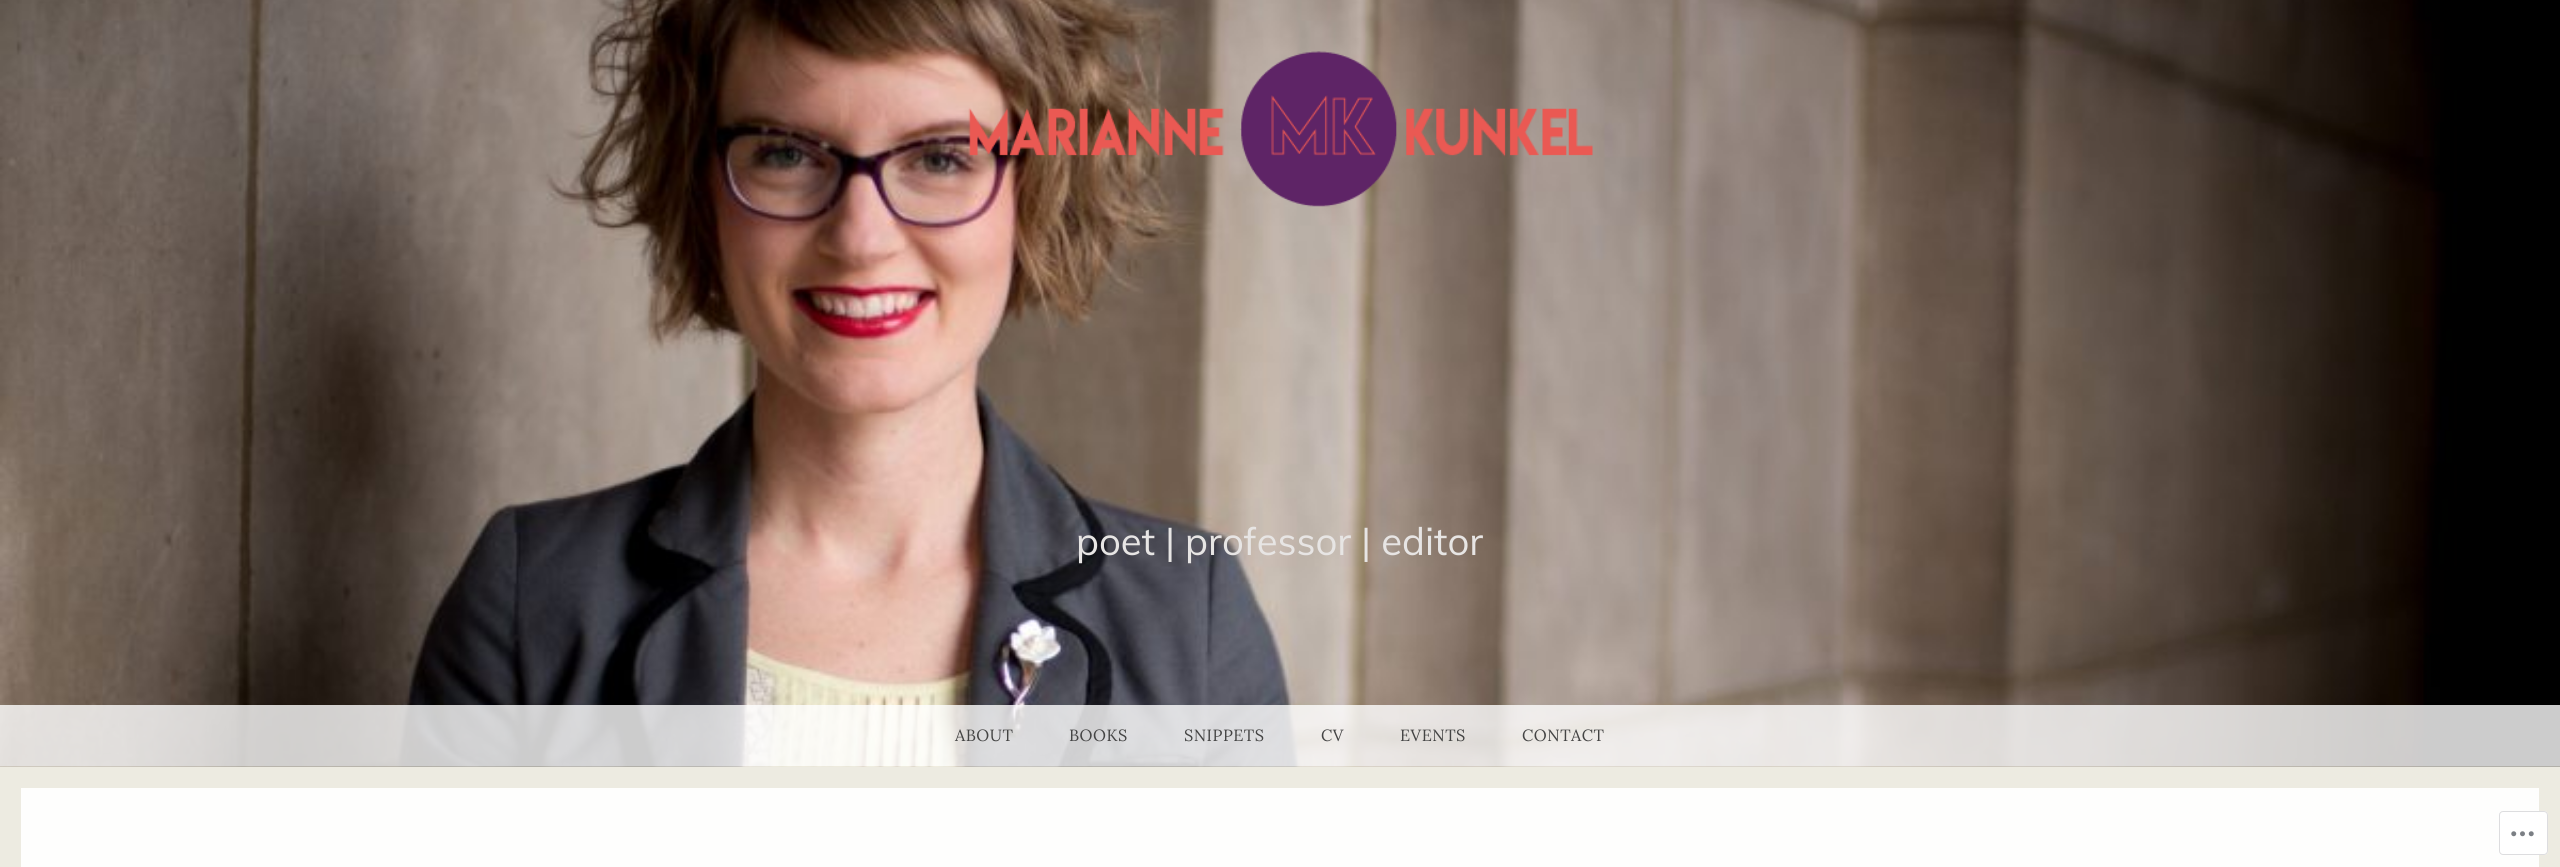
#include <cairo/cairo.h>
#include <math.h>
#include <stddef.h>


static void draw_spaced(cairo_t *cr, double x, double y, const char *s, double letter, double word) {
  cairo_move_to(cr, x, y);
  while (*s) {
    char ch[5] = {0};
    int n = 0;
    do ch[n++] = *s++; while ((*s & 0xC0) == 0x80);
    cairo_show_text(cr, ch);
    cairo_rel_move_to(cr, letter + word * (*ch == ' '), 0);
  }
}

static void rounded_rect(cairo_t *cr, double x, double y, double w, double h, double r) {
  cairo_new_sub_path(cr);
  cairo_arc(cr, x + w - r, y + h - r, r, 0, M_PI / 2);
  cairo_arc(cr, x + r, y + h - r, r, M_PI / 2, M_PI);
  cairo_arc(cr, x + r, y + r, r, M_PI, 1.5 * M_PI);
  cairo_arc(cr, x + w - r, y + r, r, 1.5 * M_PI, 2 * M_PI);
  cairo_close_path(cr);
}

static void draw_image(cairo_t *cr, const char *path, double x, double y, double w, double h) {
  cairo_surface_t *image = cairo_image_surface_create_from_png(path);
  cairo_save(cr);
  cairo_set_source_surface(cr, image, x, y);
  cairo_rectangle(cr, x, y, w, h);
  cairo_fill(cr);
  cairo_restore(cr);
  cairo_surface_destroy(image);
}

static void draw(cairo_t *cr) {
  cairo_set_source_rgb(cr, 237 / 255.0, 235 / 255.0, 225 / 255.0);
  cairo_paint(cr);
  draw_image(cr, "images/1.png", 0, 0, 2560, 767);
  draw_image(cr, "images/2.png", 968, 51, 625, 156);
  cairo_set_source_rgba(cr, 1, 1, 1, 0.8);
  cairo_rectangle(cr, 0, 705, 2560, 61);
  cairo_fill(cr);
  cairo_set_source_rgb(cr, 254 / 255.0, 254 / 255.0, 253 / 255.0);
  cairo_rectangle(cr, 21, 788, 2518, 79);
  cairo_fill(cr);
  cairo_set_source_rgba(cr, 1, 1, 1, 0.98);
  rounded_rect(cr, 2499, 811, 49, 44, 4);
  cairo_fill(cr);
  rounded_rect(cr, 2499.5, 811.5, 48, 43, 3.5);
  cairo_set_source_rgba(cr, 220 / 255.0, 220 / 255.0, 222 / 255.0, 0.98);
  cairo_set_line_width(cr, 1);
  cairo_stroke(cr);
  draw_image(cr, "images/3.png", 2511, 831, 23, 6);
  cairo_select_font_face(cr, "Muli", CAIRO_FONT_SLANT_NORMAL, CAIRO_FONT_WEIGHT_NORMAL);
  cairo_set_font_size(cr, 38.25);
  cairo_set_source_rgb(cr, 231 / 255.0, 229 / 255.0, 228 / 255.0);
  cairo_move_to(cr, 1076, 555);
  cairo_show_text(cr, "poet | professor | editor");
  cairo_select_font_face(cr, "Lora", CAIRO_FONT_SLANT_NORMAL, CAIRO_FONT_WEIGHT_NORMAL);
  cairo_set_font_size(cr, 16.25);
  cairo_set_source_rgb(cr, 68 / 255.0, 68 / 255.0, 68 / 255.0);
  draw_spaced(cr, 955, 741, "ABOUT", 0.5, 0);
  draw_spaced(cr, 1069, 741, "BOOKS", 0.5, 0);
  draw_spaced(cr, 1184, 741, "SNIPPETS", 0.5, 0);
  draw_spaced(cr, 1321, 741, "CV", 0.5, 0);
  draw_spaced(cr, 1400, 741, "EVENTS", 0.5, 0);
  draw_spaced(cr, 1522, 741, "CONTACT", 0.5, 0);
}

int main(void) {
  cairo_surface_t *surface = cairo_image_surface_create(CAIRO_FORMAT_RGB24, 2560, 867);
  cairo_t *cr = cairo_create(surface);
  cairo_font_options_t *options = cairo_font_options_create();
  cairo_font_options_set_hint_metrics(options, CAIRO_HINT_METRICS_OFF);
  cairo_font_options_set_hint_style(options, CAIRO_HINT_STYLE_NONE);
  cairo_set_font_options(cr, options);
  cairo_set_miter_limit(cr, 4);
  draw(cr);
  cairo_surface_write_to_png(surface, "out.png");
  cairo_font_options_destroy(options);
  cairo_destroy(cr);
  cairo_surface_destroy(surface);
  return 0;
}
